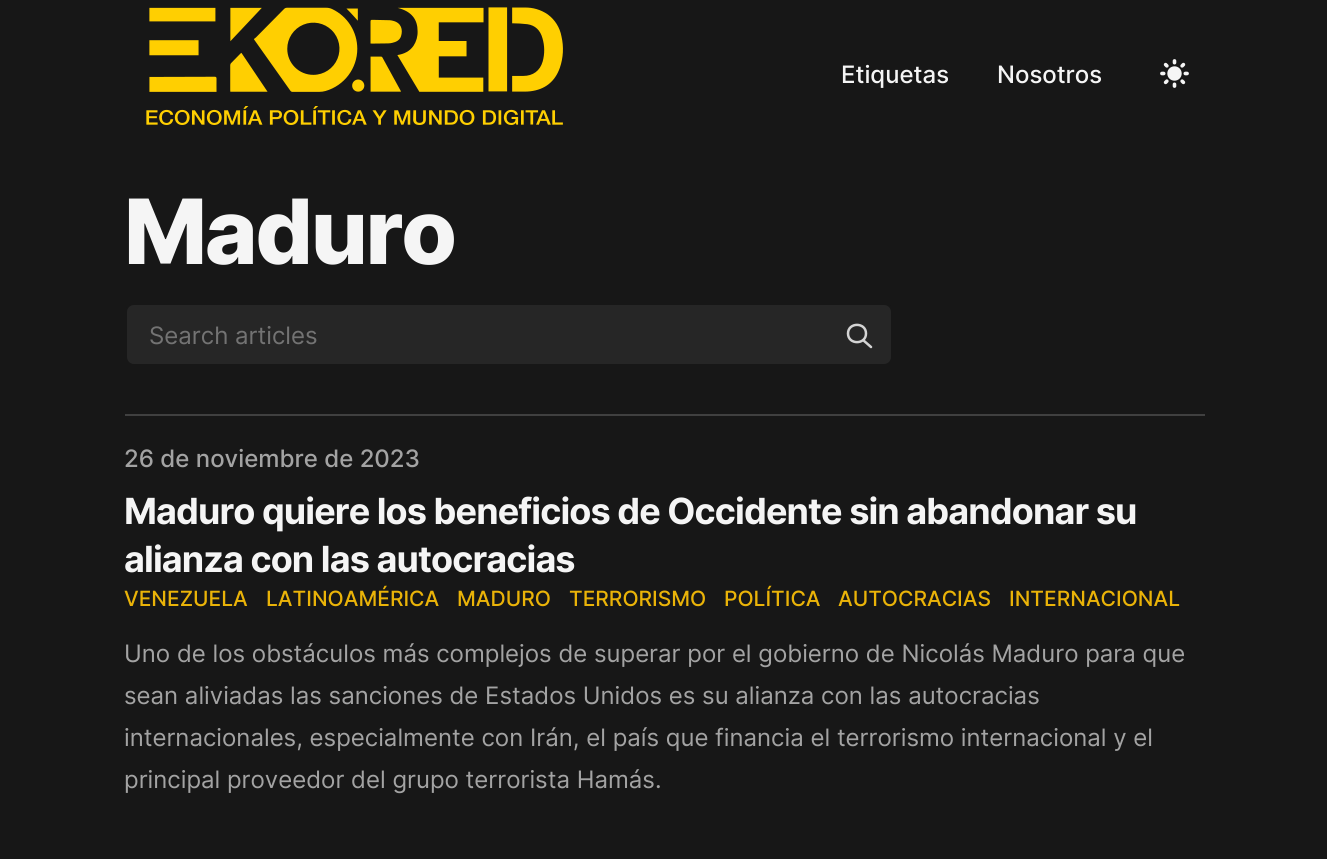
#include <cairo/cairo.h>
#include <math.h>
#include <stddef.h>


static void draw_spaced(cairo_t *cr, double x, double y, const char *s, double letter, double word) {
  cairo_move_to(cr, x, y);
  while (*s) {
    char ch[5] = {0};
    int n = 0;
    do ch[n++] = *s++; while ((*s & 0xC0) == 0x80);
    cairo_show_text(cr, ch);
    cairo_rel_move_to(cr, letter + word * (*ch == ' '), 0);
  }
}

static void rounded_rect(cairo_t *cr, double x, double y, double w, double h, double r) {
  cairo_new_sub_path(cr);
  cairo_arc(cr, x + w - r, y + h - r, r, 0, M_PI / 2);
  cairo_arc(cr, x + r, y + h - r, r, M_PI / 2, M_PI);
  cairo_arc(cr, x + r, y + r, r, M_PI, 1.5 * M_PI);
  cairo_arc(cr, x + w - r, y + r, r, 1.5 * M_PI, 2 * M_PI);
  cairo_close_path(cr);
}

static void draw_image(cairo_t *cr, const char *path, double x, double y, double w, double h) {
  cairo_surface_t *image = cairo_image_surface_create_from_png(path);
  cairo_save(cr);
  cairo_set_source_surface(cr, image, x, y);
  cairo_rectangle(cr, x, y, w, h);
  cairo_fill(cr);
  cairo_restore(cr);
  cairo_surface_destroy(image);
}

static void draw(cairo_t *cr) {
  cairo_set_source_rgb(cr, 23 / 255.0, 23 / 255.0, 23 / 255.0);
  cairo_paint(cr);
  draw_image(cr, "images/1.png", 146, 7, 417, 118);
  draw_image(cr, "images/2.png", 1160, 59, 29, 29);
  cairo_set_source_rgb(cr, 38 / 255.0, 38 / 255.0, 38 / 255.0);
  rounded_rect(cr, 126, 304, 766, 61, 8);
  cairo_fill_preserve(cr);
  cairo_set_source_rgb(cr, 23 / 255.0, 23 / 255.0, 23 / 255.0);
  cairo_stroke(cr);
  cairo_new_path(cr);
  cairo_move_to(cr, 871, 347);
  cairo_line_to(cr, 863, 340);
  cairo_move_to(cr, 866, 333.5);
  cairo_curve_to(cr, 866, 345, 848, 345, 848, 333.5);
  cairo_curve_to(cr, 848, 322, 866, 322, 866, 333.5);
  cairo_close_path(cr);
  cairo_set_source_rgb(cr, 212 / 255.0, 212 / 255.0, 212 / 255.0);
  cairo_set_line_width(cr, 2.5);
  cairo_set_line_cap(cr, CAIRO_LINE_CAP_ROUND);
  cairo_set_line_join(cr, CAIRO_LINE_JOIN_ROUND);
  cairo_stroke(cr);
  cairo_set_source_rgb(cr, 64 / 255.0, 64 / 255.0, 64 / 255.0);
  cairo_rectangle(cr, 125, 414, 1080, 2);
  cairo_fill(cr);
  cairo_select_font_face(cr, "Inter Medium", CAIRO_FONT_SLANT_ITALIC, CAIRO_FONT_WEIGHT_NORMAL);
  cairo_set_font_size(cr, 24);
  cairo_set_source_rgb(cr, 245 / 255.0, 245 / 255.0, 245 / 255.0);
  cairo_move_to(cr, 841, 83);
  cairo_show_text(cr, "Etiquetas");
  cairo_move_to(cr, 997, 83);
  cairo_show_text(cr, "Nosotros");
  cairo_select_font_face(cr, "Inter ExtraBold", CAIRO_FONT_SLANT_ITALIC, CAIRO_FONT_WEIGHT_NORMAL);
  cairo_set_font_size(cr, 90);
  draw_spaced(cr, 124, 264, "Maduro", -2.25, 0);
  cairo_select_font_face(cr, "Inter", CAIRO_FONT_SLANT_ITALIC, CAIRO_FONT_WEIGHT_NORMAL);
  cairo_set_font_size(cr, 24);
  cairo_set_source_rgb(cr, 115 / 255.0, 115 / 255.0, 115 / 255.0);
  cairo_move_to(cr, 149, 344);
  cairo_show_text(cr, "Search articles");
  cairo_select_font_face(cr, "Inter Medium", CAIRO_FONT_SLANT_ITALIC, CAIRO_FONT_WEIGHT_NORMAL);
  cairo_set_source_rgb(cr, 163 / 255.0, 163 / 255.0, 163 / 255.0);
  cairo_move_to(cr, 124, 467);
  cairo_show_text(cr, "26 de noviembre de 2023");
  cairo_select_font_face(cr, "Inter", CAIRO_FONT_SLANT_ITALIC, CAIRO_FONT_WEIGHT_BOLD);
  cairo_set_font_size(cr, 36);
  cairo_set_source_rgb(cr, 245 / 255.0, 245 / 255.0, 245 / 255.0);
  draw_spaced(cr, 124, 524, "Maduro quiere los beneficios de Occidente sin abandonar su", -0.9, 0);
  draw_spaced(cr, 124, 572, "alianza con las autocracias", -0.9, 0);
  cairo_select_font_face(cr, "Inter Medium", CAIRO_FONT_SLANT_ITALIC, CAIRO_FONT_WEIGHT_NORMAL);
  cairo_set_font_size(cr, 21);
  cairo_set_source_rgb(cr, 234 / 255.0, 179 / 255.0, 8 / 255.0);
  cairo_move_to(cr, 124, 606);
  cairo_show_text(cr, "VENEZUELA");
  cairo_move_to(cr, 266, 606);
  cairo_show_text(cr, "LATINOAMÉRICA");
  cairo_move_to(cr, 457, 606);
  cairo_show_text(cr, "MADURO");
  cairo_move_to(cr, 569, 606);
  cairo_show_text(cr, "TERRORISMO");
  cairo_move_to(cr, 724, 606);
  cairo_show_text(cr, "POLÍTICA");
  cairo_move_to(cr, 838, 606);
  cairo_show_text(cr, "AUTOCRACIAS");
  cairo_move_to(cr, 1009, 606);
  cairo_show_text(cr, "INTERNACIONAL");
  cairo_select_font_face(cr, "Inter", CAIRO_FONT_SLANT_ITALIC, CAIRO_FONT_WEIGHT_NORMAL);
  cairo_set_font_size(cr, 24);
  cairo_set_source_rgb(cr, 163 / 255.0, 163 / 255.0, 163 / 255.0);
  cairo_move_to(cr, 124, 662);
  cairo_show_text(cr, "Uno de los obstáculos más complejos de superar por el gobierno de Nicolás Maduro para que");
  cairo_move_to(cr, 124, 704);
  cairo_show_text(cr, "sean aliviadas las sanciones de Estados Unidos es su alianza con las autocracias");
  cairo_move_to(cr, 124, 746);
  cairo_show_text(cr, "internacionales, especialmente con Irán, el país que financia el terrorismo internacional y el");
  cairo_move_to(cr, 124, 788);
  cairo_show_text(cr, "principal proveedor del grupo terrorista Hamás.");
}

int main(void) {
  cairo_surface_t *surface = cairo_image_surface_create(CAIRO_FORMAT_RGB24, 1327, 859);
  cairo_t *cr = cairo_create(surface);
  cairo_font_options_t *options = cairo_font_options_create();
  cairo_font_options_set_hint_metrics(options, CAIRO_HINT_METRICS_OFF);
  cairo_font_options_set_hint_style(options, CAIRO_HINT_STYLE_NONE);
  cairo_set_font_options(cr, options);
  cairo_set_miter_limit(cr, 4);
  draw(cr);
  cairo_surface_write_to_png(surface, "out.png");
  cairo_font_options_destroy(options);
  cairo_destroy(cr);
  cairo_surface_destroy(surface);
  return 0;
}
